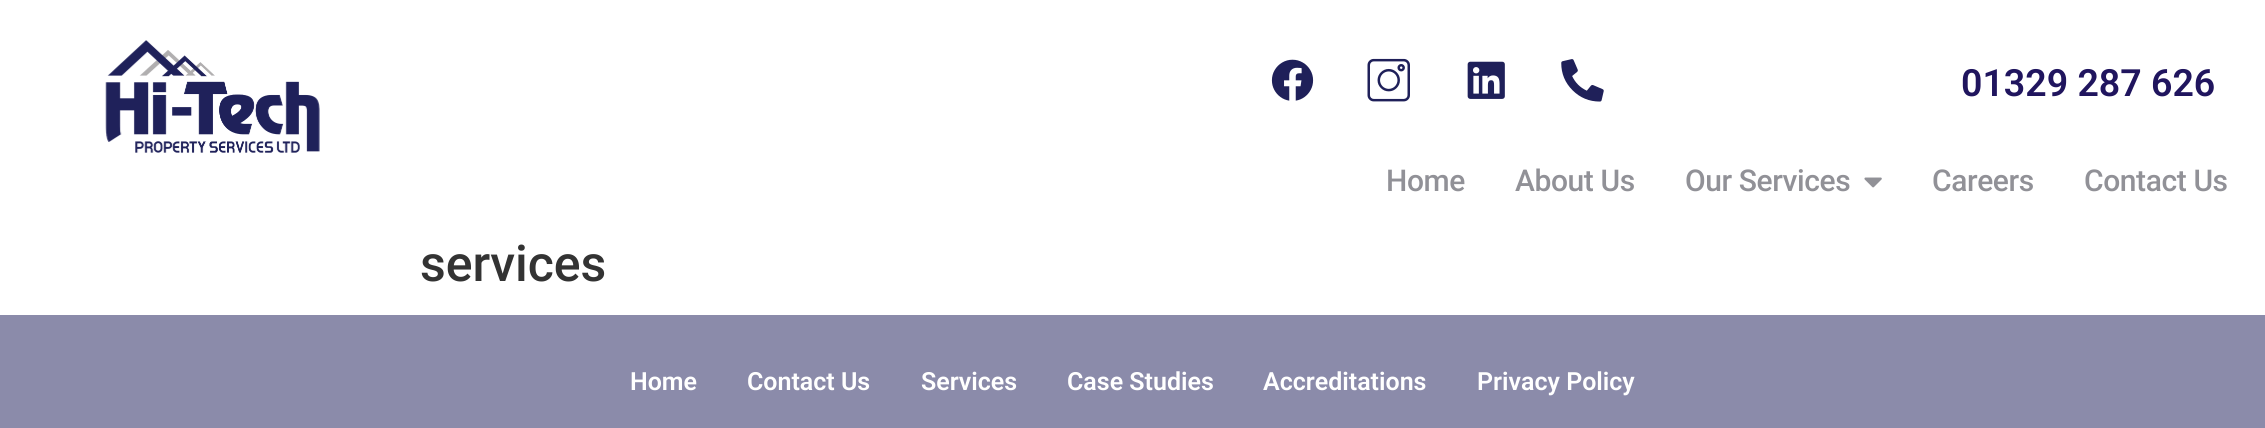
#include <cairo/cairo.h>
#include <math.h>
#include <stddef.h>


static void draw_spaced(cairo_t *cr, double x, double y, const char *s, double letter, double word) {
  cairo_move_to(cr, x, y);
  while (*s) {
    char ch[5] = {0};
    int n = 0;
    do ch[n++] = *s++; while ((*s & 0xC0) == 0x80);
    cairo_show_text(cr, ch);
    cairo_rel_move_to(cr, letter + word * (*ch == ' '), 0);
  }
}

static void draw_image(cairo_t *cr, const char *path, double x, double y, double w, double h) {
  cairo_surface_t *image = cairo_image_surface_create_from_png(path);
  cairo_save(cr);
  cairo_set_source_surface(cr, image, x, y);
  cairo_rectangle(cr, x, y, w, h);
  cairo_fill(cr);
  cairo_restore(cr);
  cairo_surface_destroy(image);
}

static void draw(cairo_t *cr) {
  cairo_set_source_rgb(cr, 1, 1, 1);
  cairo_paint(cr);
  draw_image(cr, "images/1.png", 105, 40, 215, 113);
  draw_image(cr, "images/2.png", 1271, 59, 43, 42);
  draw_image(cr, "images/3.png", 1367, 58, 43, 44);
  draw_image(cr, "images/4.png", 1467, 61, 38, 38);
  draw_image(cr, "images/5.png", 1561, 59, 43, 43);
  draw_image(cr, "images/6.png", 1864, 177, 18, 11);
  cairo_set_source_rgb(cr, 139 / 255.0, 139 / 255.0, 170 / 255.0);
  cairo_rectangle(cr, 0, 315, 2265, 113);
  cairo_fill(cr);
  cairo_select_font_face(cr, "Roboto SemiBold", CAIRO_FONT_SLANT_NORMAL, CAIRO_FONT_WEIGHT_NORMAL);
  cairo_set_font_size(cr, 37.5);
  cairo_set_source_rgb(cr, 32 / 255.0, 21 / 255.0, 94 / 255.0);
  cairo_move_to(cr, 1961, 96);
  cairo_show_text(cr, "01329 287 626");
  cairo_select_font_face(cr, "Roboto Medium", CAIRO_FONT_SLANT_NORMAL, CAIRO_FONT_WEIGHT_NORMAL);
  cairo_set_font_size(cr, 30);
  cairo_set_source_rgb(cr, 145 / 255.0, 145 / 255.0, 151 / 255.0);
  draw_spaced(cr, 1386, 191, "Home", -0.4, 0);
  draw_spaced(cr, 1515, 191, "About Us", -0.4, 0);
  draw_spaced(cr, 1685, 191, "Our Services", -0.4, 0);
  draw_spaced(cr, 1932, 191, "Careers", -0.4, 0);
  draw_spaced(cr, 2084, 191, "Contact Us", -0.4, 0);
  cairo_set_font_size(cr, 50);
  cairo_set_source_rgb(cr, 51 / 255.0, 51 / 255.0, 51 / 255.0);
  cairo_move_to(cr, 420, 281);
  cairo_show_text(cr, "services");
  cairo_select_font_face(cr, "Roboto SemiBold", CAIRO_FONT_SLANT_NORMAL, CAIRO_FONT_WEIGHT_NORMAL);
  cairo_set_font_size(cr, 25);
  cairo_set_source_rgb(cr, 1, 1, 1);
  cairo_move_to(cr, 630, 390);
  cairo_show_text(cr, "Home");
  cairo_move_to(cr, 747, 390);
  cairo_show_text(cr, "Contact Us");
  cairo_move_to(cr, 921, 390);
  cairo_show_text(cr, "Services");
  cairo_move_to(cr, 1067, 390);
  cairo_show_text(cr, "Case Studies");
  cairo_move_to(cr, 1263, 390);
  cairo_show_text(cr, "Accreditations");
  cairo_move_to(cr, 1477, 390);
  cairo_show_text(cr, "Privacy Policy");
}

int main(void) {
  cairo_surface_t *surface = cairo_image_surface_create(CAIRO_FORMAT_RGB24, 2265, 428);
  cairo_t *cr = cairo_create(surface);
  cairo_font_options_t *options = cairo_font_options_create();
  cairo_font_options_set_hint_metrics(options, CAIRO_HINT_METRICS_OFF);
  cairo_font_options_set_hint_style(options, CAIRO_HINT_STYLE_NONE);
  cairo_set_font_options(cr, options);
  cairo_set_miter_limit(cr, 4);
  draw(cr);
  cairo_surface_write_to_png(surface, "out.png");
  cairo_font_options_destroy(options);
  cairo_destroy(cr);
  cairo_surface_destroy(surface);
  return 0;
}
